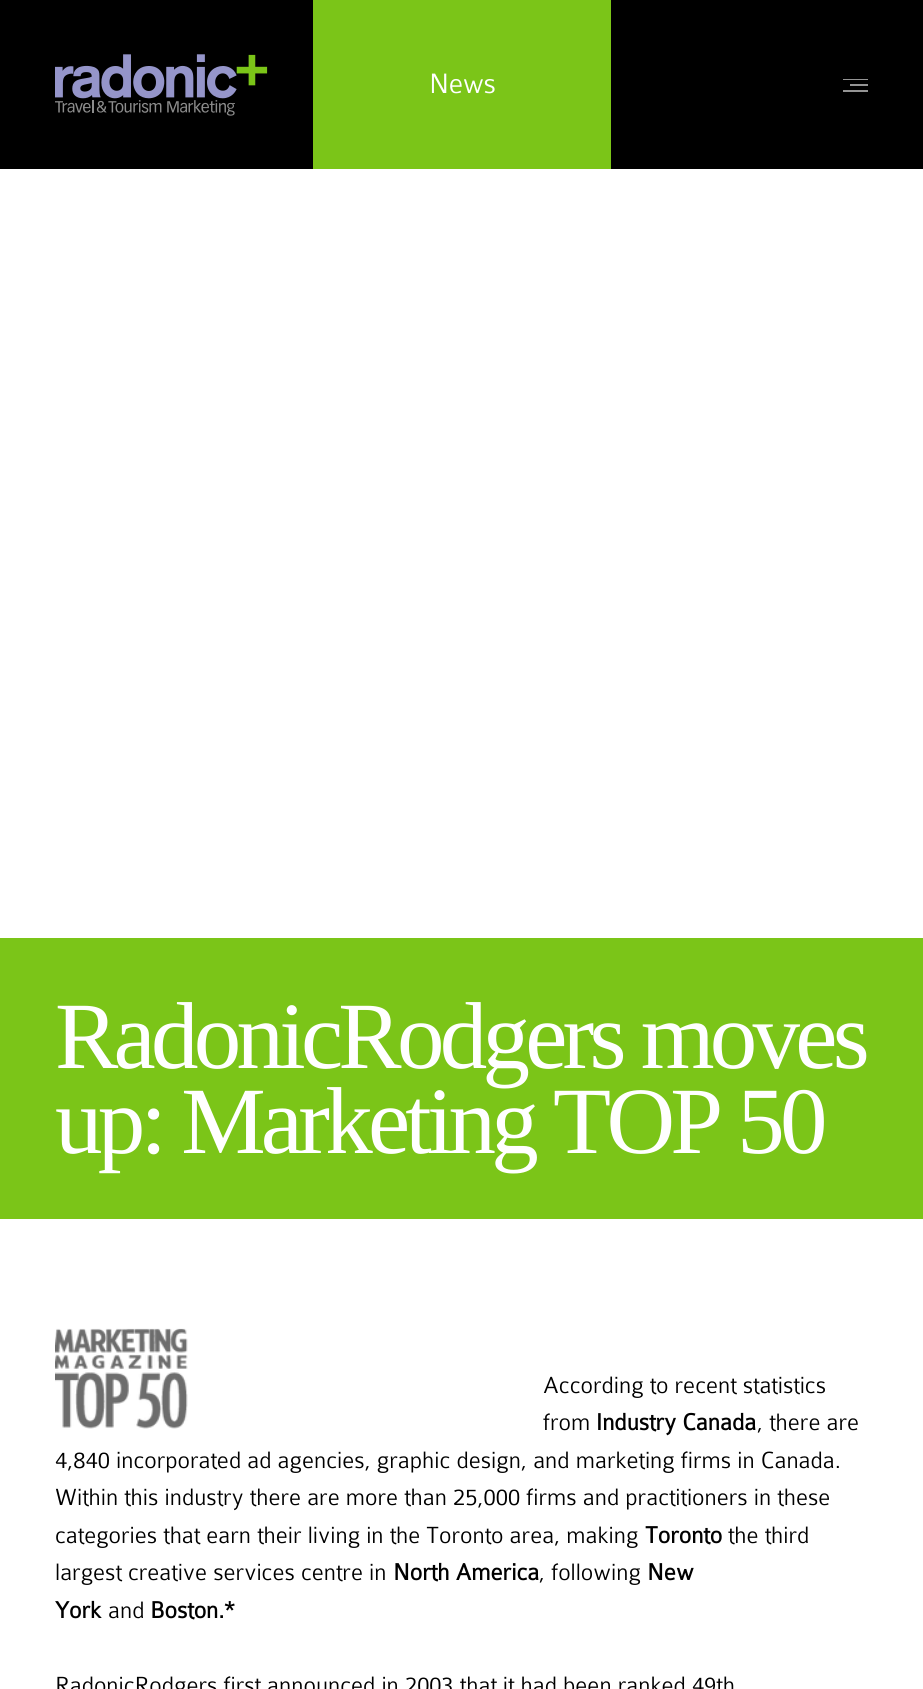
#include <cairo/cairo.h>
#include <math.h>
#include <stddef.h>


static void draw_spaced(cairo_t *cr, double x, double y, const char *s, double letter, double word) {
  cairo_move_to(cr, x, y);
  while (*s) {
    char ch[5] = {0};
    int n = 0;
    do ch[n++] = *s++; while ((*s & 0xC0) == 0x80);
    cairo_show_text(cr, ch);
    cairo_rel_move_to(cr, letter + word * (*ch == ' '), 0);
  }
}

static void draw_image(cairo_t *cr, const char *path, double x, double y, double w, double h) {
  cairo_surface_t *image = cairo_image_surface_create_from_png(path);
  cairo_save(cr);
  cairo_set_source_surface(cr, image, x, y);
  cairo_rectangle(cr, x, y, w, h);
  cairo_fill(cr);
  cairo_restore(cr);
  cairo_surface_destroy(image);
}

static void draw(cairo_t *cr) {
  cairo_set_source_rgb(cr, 1, 1, 1);
  cairo_paint(cr);
  cairo_set_source_rgb(cr, 0, 0, 0);
  cairo_rectangle(cr, 0, 0, 313, 169);
  cairo_fill(cr);
  cairo_rectangle(cr, 611, 0, 312, 169);
  cairo_fill(cr);
  draw_image(cr, "images/1.png", 55, 54, 213, 62);
  cairo_set_source_rgb(cr, 148 / 255.0, 148 / 255.0, 148 / 255.0);
  cairo_rectangle(cr, 843, 79, 25, 1);
  cairo_fill(cr);
  cairo_rectangle(cr, 850, 84, 18, 2);
  cairo_fill(cr);
  cairo_rectangle(cr, 843, 90, 25, 2);
  cairo_fill(cr);
  cairo_set_source_rgb(cr, 123 / 255.0, 197 / 255.0, 24 / 255.0);
  cairo_rectangle(cr, 313, 0, 298, 169);
  cairo_fill(cr);
  cairo_rectangle(cr, 0, 938, 923, 281);
  cairo_fill(cr);
  draw_image(cr, "images/2.png", 55, 1328, 133, 101);
  cairo_select_font_face(cr, "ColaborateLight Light", CAIRO_FONT_SLANT_NORMAL, CAIRO_FONT_WEIGHT_NORMAL);
  cairo_set_font_size(cr, 30);
  cairo_set_source_rgb(cr, 1, 1, 1);
  draw_spaced(cr, 429, 93, "News", -0.5, 0);
  cairo_select_font_face(cr, "Liberation Serif", CAIRO_FONT_SLANT_NORMAL, CAIRO_FONT_WEIGHT_NORMAL);
  cairo_set_font_size(cr, 95);
  draw_spaced(cr, 55, 1068, "RadonicRodgers moves", -4.75, 0);
  draw_spaced(cr, 55, 1153, "up: Marketing TOP 50", -4.75, 0);
  cairo_select_font_face(cr, "ColaborateLight Light", CAIRO_FONT_SLANT_NORMAL, CAIRO_FONT_WEIGHT_NORMAL);
  cairo_set_font_size(cr, 25);
  cairo_set_source_rgb(cr, 0, 0, 0);
  cairo_move_to(cr, 543, 1393);
  cairo_show_text(cr, "According to recent statistics");
  cairo_move_to(cr, 543, 1430);
  cairo_show_text(cr, "from");
  cairo_select_font_face(cr, "ColaborateLight", CAIRO_FONT_SLANT_NORMAL, CAIRO_FONT_WEIGHT_BOLD);
  cairo_move_to(cr, 596, 1430);
  cairo_show_text(cr, "Industry Canada");
  cairo_select_font_face(cr, "ColaborateLight Light", CAIRO_FONT_SLANT_NORMAL, CAIRO_FONT_WEIGHT_NORMAL);
  cairo_move_to(cr, 757, 1430);
  cairo_show_text(cr, ", there are");
  cairo_move_to(cr, 55, 1468);
  cairo_show_text(cr, "4,840 incorporated ad agencies, graphic design, and marketing firms in Canada.");
  cairo_move_to(cr, 55, 1505);
  cairo_show_text(cr, "Within this industry there are more than 25,000 firms and practitioners in these");
  cairo_move_to(cr, 55, 1543);
  cairo_show_text(cr, "categories that earn their living in the Toronto area, making");
  cairo_select_font_face(cr, "ColaborateLight", CAIRO_FONT_SLANT_NORMAL, CAIRO_FONT_WEIGHT_BOLD);
  cairo_move_to(cr, 645, 1543);
  cairo_show_text(cr, "Toronto");
  cairo_select_font_face(cr, "ColaborateLight Light", CAIRO_FONT_SLANT_NORMAL, CAIRO_FONT_WEIGHT_NORMAL);
  cairo_move_to(cr, 728, 1543);
  cairo_show_text(cr, "the third");
  cairo_move_to(cr, 55, 1580);
  cairo_show_text(cr, "largest creative services centre in");
  cairo_select_font_face(cr, "ColaborateLight", CAIRO_FONT_SLANT_NORMAL, CAIRO_FONT_WEIGHT_BOLD);
  cairo_move_to(cr, 393, 1580);
  cairo_show_text(cr, "North America");
  cairo_select_font_face(cr, "ColaborateLight Light", CAIRO_FONT_SLANT_NORMAL, CAIRO_FONT_WEIGHT_NORMAL);
  cairo_move_to(cr, 539, 1580);
  cairo_show_text(cr, ", following");
  cairo_select_font_face(cr, "ColaborateLight", CAIRO_FONT_SLANT_NORMAL, CAIRO_FONT_WEIGHT_BOLD);
  cairo_move_to(cr, 647, 1580);
  cairo_show_text(cr, "New");
  cairo_move_to(cr, 55, 1618);
  cairo_show_text(cr, "York");
  cairo_select_font_face(cr, "ColaborateLight Light", CAIRO_FONT_SLANT_NORMAL, CAIRO_FONT_WEIGHT_NORMAL);
  cairo_move_to(cr, 108, 1618);
  cairo_show_text(cr, "and");
  cairo_select_font_face(cr, "ColaborateLight", CAIRO_FONT_SLANT_NORMAL, CAIRO_FONT_WEIGHT_BOLD);
  cairo_move_to(cr, 150, 1618);
  cairo_show_text(cr, "Boston.*");
  cairo_select_font_face(cr, "ColaborateLight Light", CAIRO_FONT_SLANT_NORMAL, CAIRO_FONT_WEIGHT_NORMAL);
  cairo_move_to(cr, 55, 1693);
  cairo_show_text(cr, "RadonicRodgers first announced in 2003 that it had been ranked 49th");
}

int main(void) {
  cairo_surface_t *surface = cairo_image_surface_create(CAIRO_FORMAT_RGB24, 923, 1689);
  cairo_t *cr = cairo_create(surface);
  cairo_font_options_t *options = cairo_font_options_create();
  cairo_font_options_set_hint_metrics(options, CAIRO_HINT_METRICS_OFF);
  cairo_font_options_set_hint_style(options, CAIRO_HINT_STYLE_NONE);
  cairo_set_font_options(cr, options);
  cairo_set_miter_limit(cr, 4);
  draw(cr);
  cairo_surface_write_to_png(surface, "out.png");
  cairo_font_options_destroy(options);
  cairo_destroy(cr);
  cairo_surface_destroy(surface);
  return 0;
}
